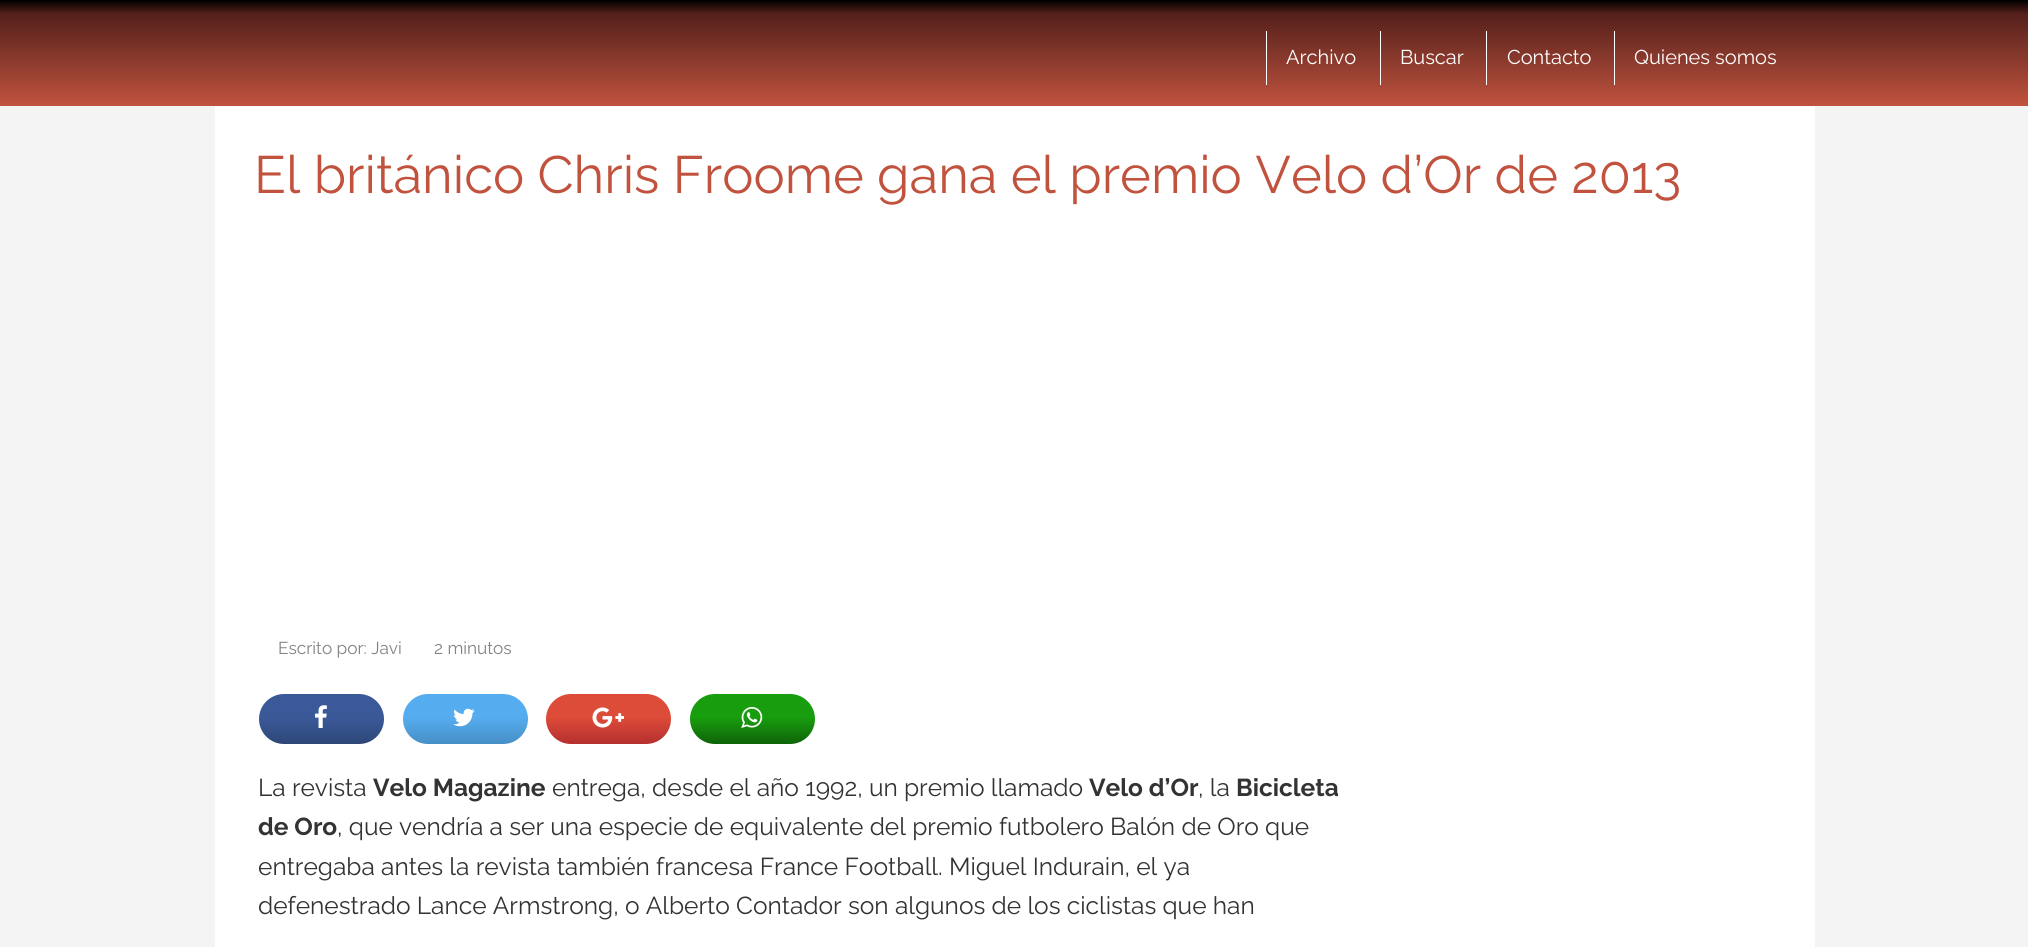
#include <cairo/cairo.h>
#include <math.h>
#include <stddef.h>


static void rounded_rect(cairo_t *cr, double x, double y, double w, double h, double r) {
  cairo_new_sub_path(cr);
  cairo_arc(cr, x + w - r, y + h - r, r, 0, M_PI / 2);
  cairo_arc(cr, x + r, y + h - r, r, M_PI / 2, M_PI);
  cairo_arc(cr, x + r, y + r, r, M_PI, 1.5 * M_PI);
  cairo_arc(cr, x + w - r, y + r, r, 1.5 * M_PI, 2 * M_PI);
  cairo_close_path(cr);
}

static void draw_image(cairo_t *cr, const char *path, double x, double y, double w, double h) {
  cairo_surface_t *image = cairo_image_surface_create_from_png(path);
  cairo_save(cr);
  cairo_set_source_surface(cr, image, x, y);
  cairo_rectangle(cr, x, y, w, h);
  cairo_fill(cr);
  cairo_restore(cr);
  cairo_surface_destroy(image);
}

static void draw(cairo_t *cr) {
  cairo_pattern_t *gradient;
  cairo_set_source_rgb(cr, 244 / 255.0, 244 / 255.0, 244 / 255.0);
  cairo_paint(cr);
  gradient = cairo_pattern_create_linear(1014, 0, 1014, 106);
  cairo_pattern_add_color_stop_rgba(gradient, 0, 0, 0, 0, 1);
  cairo_pattern_add_color_stop_rgba(gradient, 0.13, 84 / 255.0, 32 / 255.0, 27 / 255.0, 1);
  cairo_pattern_add_color_stop_rgba(gradient, 1, 193 / 255.0, 83 / 255.0, 62 / 255.0, 1);
  cairo_set_source(cr, gradient);
  cairo_pattern_destroy(gradient);
  cairo_rectangle(cr, 0, 0, 2028, 106);
  cairo_fill(cr);
  cairo_set_source_rgb(cr, 1, 1, 1);
  cairo_rectangle(cr, 1266, 31, 1, 54);
  cairo_fill(cr);
  cairo_rectangle(cr, 1380, 31, 1, 54);
  cairo_fill(cr);
  cairo_rectangle(cr, 1486, 31, 1, 54);
  cairo_fill(cr);
  cairo_rectangle(cr, 1614, 31, 1, 54);
  cairo_fill(cr);
  cairo_rectangle(cr, 215, 106, 1600, 841);
  cairo_fill(cr);
  gradient = cairo_pattern_create_linear(321, 694, 321, 744);
  cairo_pattern_add_color_stop_rgba(gradient, 0, 59 / 255.0, 89 / 255.0, 152 / 255.0, 1);
  cairo_pattern_add_color_stop_rgba(gradient, 0.48, 59 / 255.0, 89 / 255.0, 152 / 255.0, 1);
  cairo_pattern_add_color_stop_rgba(gradient, 1, 46 / 255.0, 71 / 255.0, 119 / 255.0, 1);
  cairo_set_source(cr, gradient);
  cairo_pattern_destroy(gradient);
  rounded_rect(cr, 259, 694, 125, 50, 25);
  cairo_fill(cr);
  draw_image(cr, "images/1.png", 315, 705, 12, 23);
  gradient = cairo_pattern_create_linear(465, 694, 465, 744);
  cairo_pattern_add_color_stop_rgba(gradient, 0, 85 / 255.0, 172 / 255.0, 238 / 255.0, 1);
  cairo_pattern_add_color_stop_rgba(gradient, 0.48, 85 / 255.0, 172 / 255.0, 238 / 255.0, 1);
  cairo_pattern_add_color_stop_rgba(gradient, 1, 71 / 255.0, 143 / 255.0, 198 / 255.0, 1);
  cairo_set_source(cr, gradient);
  cairo_pattern_destroy(gradient);
  rounded_rect(cr, 403, 694, 125, 50, 25);
  cairo_fill(cr);
  draw_image(cr, "images/2.png", 453, 708, 22, 19);
  gradient = cairo_pattern_create_linear(609, 694, 609, 744);
  cairo_pattern_add_color_stop_rgba(gradient, 0, 221 / 255.0, 75 / 255.0, 57 / 255.0, 1);
  cairo_pattern_add_color_stop_rgba(gradient, 0.47, 221 / 255.0, 75 / 255.0, 57 / 255.0, 1);
  cairo_pattern_add_color_stop_rgba(gradient, 1, 181 / 255.0, 47 / 255.0, 47 / 255.0, 1);
  cairo_set_source(cr, gradient);
  cairo_pattern_destroy(gradient);
  rounded_rect(cr, 546, 694, 125, 50, 25);
  cairo_fill(cr);
  draw_image(cr, "images/3.png", 592, 707, 32, 21);
  gradient = cairo_pattern_create_linear(753, 694, 753, 744);
  cairo_pattern_add_color_stop_rgba(gradient, 0, 24 / 255.0, 157 / 255.0, 14 / 255.0, 1);
  cairo_pattern_add_color_stop_rgba(gradient, 0.47, 24 / 255.0, 157 / 255.0, 14 / 255.0, 1);
  cairo_pattern_add_color_stop_rgba(gradient, 1, 14 / 255.0, 99 / 255.0, 8 / 255.0, 1);
  cairo_set_source(cr, gradient);
  cairo_pattern_destroy(gradient);
  rounded_rect(cr, 690, 694, 125, 50, 25);
  cairo_fill(cr);
  draw_image(cr, "images/4.png", 741, 706, 22, 22);
  cairo_select_font_face(cr, "Raleway", CAIRO_FONT_SLANT_NORMAL, CAIRO_FONT_WEIGHT_NORMAL);
  cairo_set_font_size(cr, 20);
  cairo_set_source_rgb(cr, 1, 1, 1);
  cairo_move_to(cr, 1286, 64);
  cairo_show_text(cr, "Archivo");
  cairo_move_to(cr, 1400, 64);
  cairo_show_text(cr, "Buscar");
  cairo_move_to(cr, 1507, 64);
  cairo_show_text(cr, "Contacto");
  cairo_move_to(cr, 1634, 64);
  cairo_show_text(cr, "Quienes somos");
  cairo_set_font_size(cr, 52.5);
  cairo_set_source_rgb(cr, 193 / 255.0, 83 / 255.0, 62 / 255.0);
  cairo_move_to(cr, 254, 193);
  cairo_show_text(cr, "El británico Chris Froome gana el premio Velo d’Or de 2013");
  cairo_set_font_size(cr, 17.25);
  cairo_set_source_rgb(cr, 130 / 255.0, 130 / 255.0, 130 / 255.0);
  cairo_move_to(cr, 278, 654);
  cairo_show_text(cr, "Escrito por: Javi");
  cairo_move_to(cr, 434, 654);
  cairo_show_text(cr, "2 minutos");
  cairo_set_font_size(cr, 24.5);
  cairo_set_source_rgb(cr, 51 / 255.0, 51 / 255.0, 51 / 255.0);
  cairo_move_to(cr, 258, 796);
  cairo_show_text(cr, "La revista");
  cairo_select_font_face(cr, "Raleway", CAIRO_FONT_SLANT_NORMAL, CAIRO_FONT_WEIGHT_BOLD);
  cairo_move_to(cr, 373, 796);
  cairo_show_text(cr, "Velo Magazine");
  cairo_select_font_face(cr, "Raleway", CAIRO_FONT_SLANT_NORMAL, CAIRO_FONT_WEIGHT_NORMAL);
  cairo_move_to(cr, 552, 796);
  cairo_show_text(cr, "entrega, desde el año 1992, un premio llamado");
  cairo_select_font_face(cr, "Raleway", CAIRO_FONT_SLANT_NORMAL, CAIRO_FONT_WEIGHT_BOLD);
  cairo_move_to(cr, 1089, 796);
  cairo_show_text(cr, "Velo d’Or");
  cairo_select_font_face(cr, "Raleway", CAIRO_FONT_SLANT_NORMAL, CAIRO_FONT_WEIGHT_NORMAL);
  cairo_move_to(cr, 1198, 796);
  cairo_show_text(cr, ", la");
  cairo_select_font_face(cr, "Raleway", CAIRO_FONT_SLANT_NORMAL, CAIRO_FONT_WEIGHT_BOLD);
  cairo_move_to(cr, 1236, 796);
  cairo_show_text(cr, "Bicicleta");
  cairo_move_to(cr, 258, 835);
  cairo_show_text(cr, "de Oro");
  cairo_select_font_face(cr, "Raleway", CAIRO_FONT_SLANT_NORMAL, CAIRO_FONT_WEIGHT_NORMAL);
  cairo_move_to(cr, 337, 835);
  cairo_show_text(cr, ", que vendría a ser una especie de equivalente del premio futbolero Balón de Oro que");
  cairo_move_to(cr, 258, 875);
  cairo_show_text(cr, "entregaba antes la revista también francesa France Football. Miguel Indurain, el ya");
  cairo_move_to(cr, 258, 914);
  cairo_show_text(cr, "defenestrado Lance Armstrong, o Alberto Contador son algunos de los ciclistas que han");
}

int main(void) {
  cairo_surface_t *surface = cairo_image_surface_create(CAIRO_FORMAT_RGB24, 2028, 947);
  cairo_t *cr = cairo_create(surface);
  cairo_font_options_t *options = cairo_font_options_create();
  cairo_font_options_set_hint_metrics(options, CAIRO_HINT_METRICS_OFF);
  cairo_font_options_set_hint_style(options, CAIRO_HINT_STYLE_NONE);
  cairo_set_font_options(cr, options);
  cairo_set_miter_limit(cr, 4);
  draw(cr);
  cairo_surface_write_to_png(surface, "out.png");
  cairo_font_options_destroy(options);
  cairo_destroy(cr);
  cairo_surface_destroy(surface);
  return 0;
}
